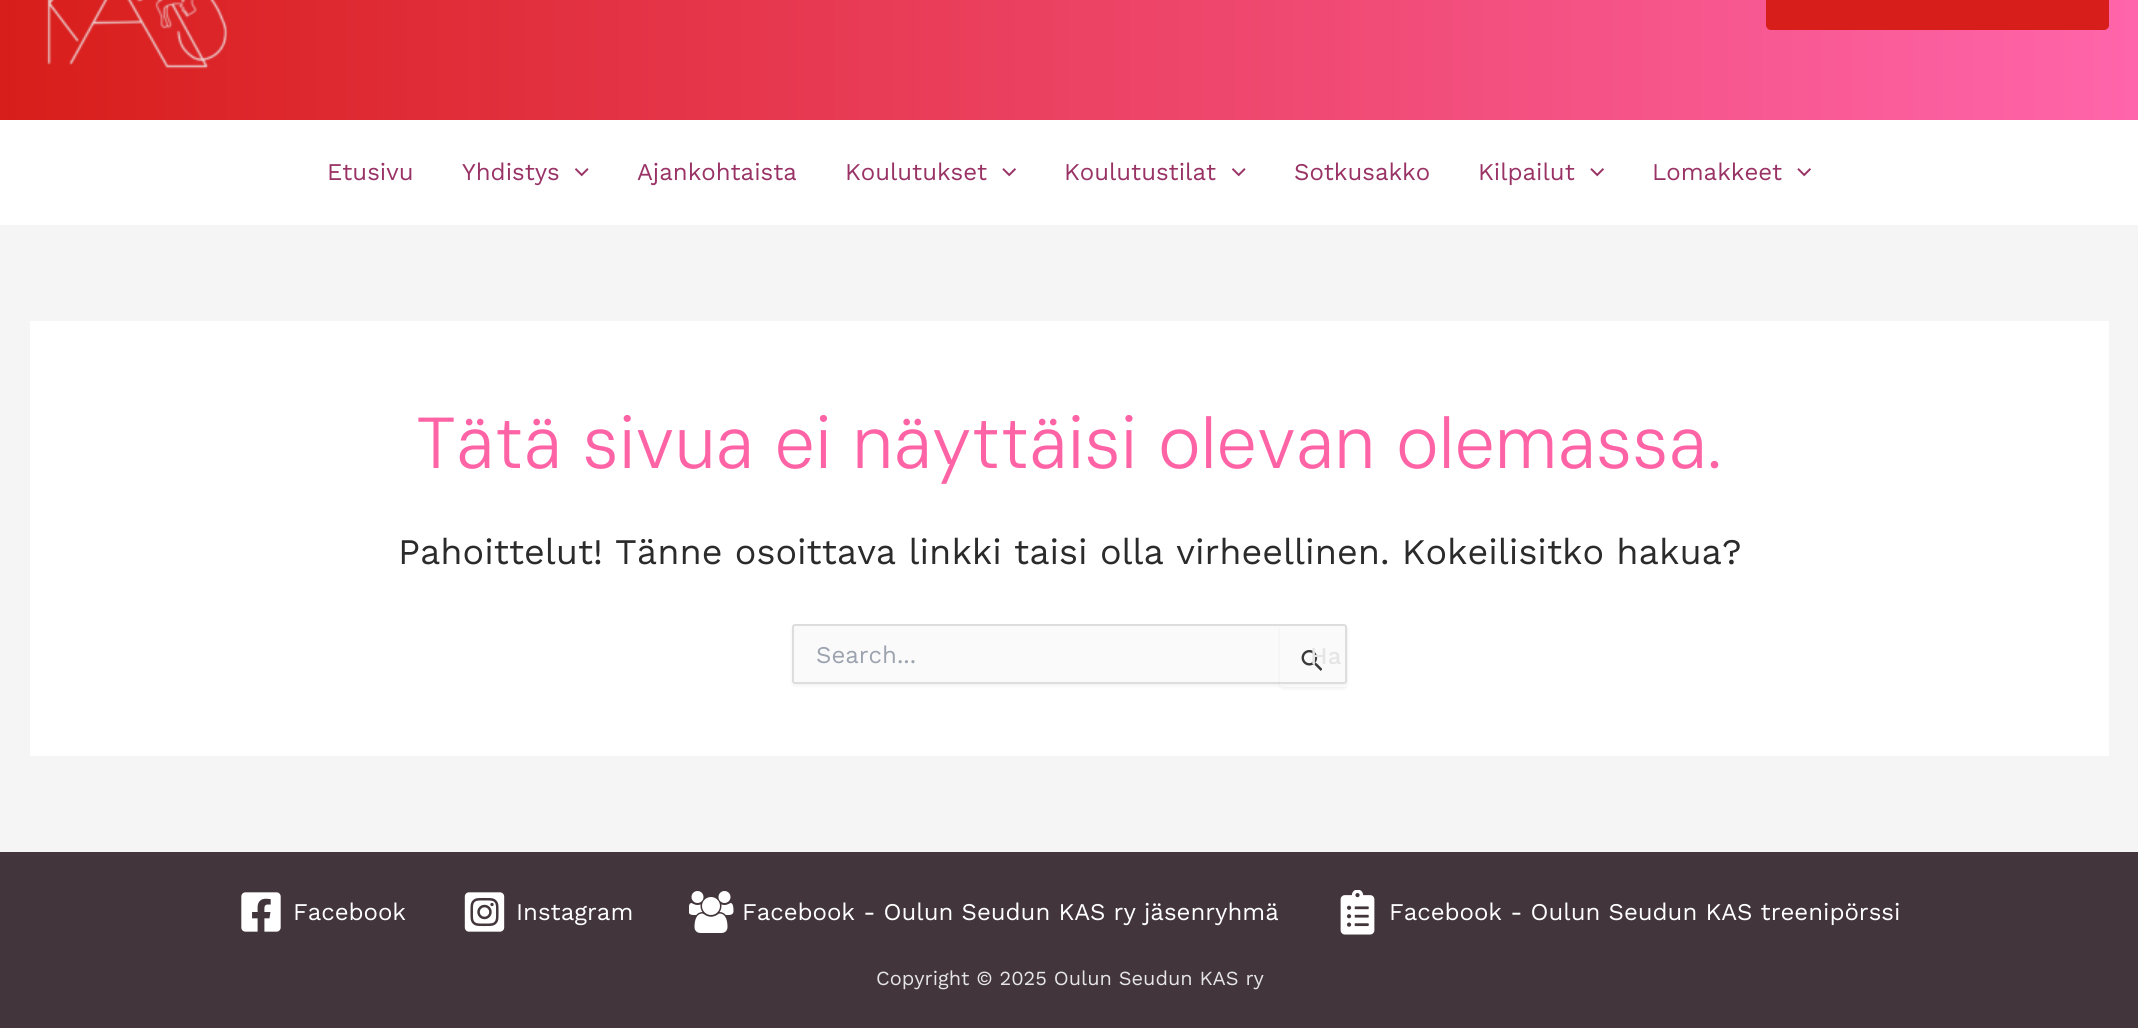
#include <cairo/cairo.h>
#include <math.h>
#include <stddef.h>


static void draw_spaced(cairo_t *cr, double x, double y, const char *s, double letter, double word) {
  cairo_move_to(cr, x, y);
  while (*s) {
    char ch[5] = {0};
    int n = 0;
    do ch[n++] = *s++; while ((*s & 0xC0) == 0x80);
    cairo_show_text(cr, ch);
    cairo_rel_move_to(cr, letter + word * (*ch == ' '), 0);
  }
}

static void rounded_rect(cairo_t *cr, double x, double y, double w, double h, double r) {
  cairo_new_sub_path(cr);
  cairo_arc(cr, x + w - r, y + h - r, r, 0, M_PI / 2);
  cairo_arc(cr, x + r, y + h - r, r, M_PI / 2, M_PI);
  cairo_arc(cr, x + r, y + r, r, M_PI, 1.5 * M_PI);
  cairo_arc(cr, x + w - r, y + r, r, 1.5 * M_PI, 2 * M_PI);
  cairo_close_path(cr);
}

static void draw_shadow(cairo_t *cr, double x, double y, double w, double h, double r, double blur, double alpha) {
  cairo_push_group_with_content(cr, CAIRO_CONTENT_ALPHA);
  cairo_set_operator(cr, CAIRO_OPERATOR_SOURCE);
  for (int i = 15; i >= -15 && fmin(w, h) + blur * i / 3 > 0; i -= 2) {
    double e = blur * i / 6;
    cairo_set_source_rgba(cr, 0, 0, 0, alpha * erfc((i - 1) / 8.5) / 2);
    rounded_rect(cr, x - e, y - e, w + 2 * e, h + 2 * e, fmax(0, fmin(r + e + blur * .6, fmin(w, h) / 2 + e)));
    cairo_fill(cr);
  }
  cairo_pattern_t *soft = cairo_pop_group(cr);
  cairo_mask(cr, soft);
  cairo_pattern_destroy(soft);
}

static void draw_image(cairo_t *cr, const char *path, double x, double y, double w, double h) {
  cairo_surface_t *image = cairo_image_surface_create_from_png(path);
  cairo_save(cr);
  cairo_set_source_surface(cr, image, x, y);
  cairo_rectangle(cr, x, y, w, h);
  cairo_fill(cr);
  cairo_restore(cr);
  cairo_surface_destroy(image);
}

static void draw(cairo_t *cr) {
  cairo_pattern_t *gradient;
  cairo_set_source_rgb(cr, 245 / 255.0, 245 / 255.0, 245 / 255.0);
  cairo_paint(cr);
  gradient = cairo_pattern_create_linear(0, -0.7, 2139, -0.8);
  cairo_pattern_add_color_stop_rgba(gradient, 0, 216 / 255.0, 30 / 255.0, 26 / 255.0, 1);
  cairo_pattern_add_color_stop_rgba(gradient, 1, 1, 101 / 255.0, 171 / 255.0, 1);
  cairo_set_source(cr, gradient);
  cairo_pattern_destroy(gradient);
  cairo_rectangle(cr, 0, 0, 2138, 120);
  cairo_fill(cr);
  draw_image(cr, "images/1.png", 46, 0, 182, 69);
  cairo_set_source_rgb(cr, 216 / 255.0, 30 / 255.0, 26 / 255.0);
  rounded_rect(cr, 1766, -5, 343, 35, 5);
  cairo_fill(cr);
  cairo_set_source_rgb(cr, 1, 1, 1);
  cairo_rectangle(cr, 0, 120, 2138, 105);
  cairo_fill(cr);
  draw_image(cr, "images/2.png", 575, 168, 14, 9);
  draw_image(cr, "images/3.png", 1002, 168, 14, 9);
  draw_image(cr, "images/2.png", 1232, 168, 14, 9);
  draw_image(cr, "images/3.png", 1590, 168, 14, 9);
  draw_image(cr, "images/3.png", 1797, 168, 14, 9);
  cairo_rectangle(cr, 30, 321, 2079, 435);
  cairo_fill(cr);
  cairo_set_source_rgb(cr, 0, 0, 0);
  draw_shadow(cr, 792, 626, 555, 60, 3, 1.5, 0.05);
  cairo_set_source_rgb(cr, 250 / 255.0, 250 / 255.0, 250 / 255.0);
  rounded_rect(cr, 793, 625, 553, 58, 2);
  cairo_fill_preserve(cr);
  cairo_set_source_rgb(cr, 221 / 255.0, 221 / 255.0, 221 / 255.0);
  cairo_stroke(cr);
  draw_image(cr, "images/4.png", 1301, 650, 21, 21);
  cairo_save(cr);
  cairo_set_fill_rule(cr, CAIRO_FILL_RULE_EVEN_ODD);
  cairo_new_path(cr);
  cairo_move_to(cr, 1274, 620);
  cairo_line_to(cr, 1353, 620);
  cairo_line_to(cr, 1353, 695);
  cairo_line_to(cr, 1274, 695);
  cairo_close_path(cr);
  cairo_move_to(cr, 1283, 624);
  cairo_line_to(cr, 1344, 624);
  cairo_curve_to(cr, 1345.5, 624, 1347, 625.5, 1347, 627);
  cairo_line_to(cr, 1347, 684);
  cairo_curve_to(cr, 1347, 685.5, 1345.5, 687, 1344, 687);
  cairo_line_to(cr, 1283, 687);
  cairo_curve_to(cr, 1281.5, 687, 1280, 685.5, 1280, 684);
  cairo_line_to(cr, 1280, 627);
  cairo_curve_to(cr, 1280, 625.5, 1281.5, 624, 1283, 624);
  cairo_close_path(cr);
  cairo_clip(cr);
  cairo_set_source_rgb(cr, 0, 0, 0);
  draw_shadow(cr, 1280, 626, 67, 63, 3, 1.5, 0.05);
  cairo_restore(cr);
  cairo_set_source_rgb(cr, 66 / 255.0, 53 / 255.0, 59 / 255.0);
  cairo_rectangle(cr, 0, 852, 2138, 176);
  cairo_fill(cr);
  draw_image(cr, "images/5.png", 241, 892, 40, 40);
  draw_image(cr, "images/6.png", 464, 892, 41, 40);
  draw_image(cr, "images/7.png", 689, 891, 45, 42);
  draw_image(cr, "images/8.png", 1340, 890, 35, 45);
  cairo_select_font_face(cr, "Work Sans", CAIRO_FONT_SLANT_NORMAL, CAIRO_FONT_WEIGHT_NORMAL);
  cairo_set_font_size(cr, 24);
  cairo_set_source_rgb(cr, 153 / 255.0, 51 / 255.0, 102 / 255.0);
  cairo_move_to(cr, 327, 180);
  cairo_show_text(cr, "Etusivu");
  cairo_move_to(cr, 462, 180);
  cairo_show_text(cr, "Yhdistys");
  cairo_move_to(cr, 637, 180);
  cairo_show_text(cr, "Ajankohtaista");
  cairo_move_to(cr, 845, 180);
  cairo_show_text(cr, "Koulutukset");
  cairo_move_to(cr, 1064, 180);
  cairo_show_text(cr, "Koulutustilat");
  cairo_move_to(cr, 1294, 180);
  cairo_show_text(cr, "Sotkusakko");
  cairo_move_to(cr, 1478, 180);
  cairo_show_text(cr, "Kilpailut");
  cairo_move_to(cr, 1652, 180);
  cairo_show_text(cr, "Lomakkeet");
  cairo_select_font_face(cr, "DM Sans Light", CAIRO_FONT_SLANT_NORMAL, CAIRO_FONT_WEIGHT_NORMAL);
  cairo_set_font_size(cr, 72);
  cairo_set_source_rgb(cr, 254 / 255.0, 99 / 255.0, 166 / 255.0);
  draw_spaced(cr, 416, 468, "Tätä sivua ei näyttäisi olevan olemassa.", 0, 0.5);
  cairo_select_font_face(cr, "Work Sans", CAIRO_FONT_SLANT_NORMAL, CAIRO_FONT_WEIGHT_NORMAL);
  cairo_set_font_size(cr, 36);
  cairo_set_source_rgb(cr, 43 / 255.0, 43 / 255.0, 43 / 255.0);
  cairo_move_to(cr, 398, 564);
  cairo_show_text(cr, "Pahoittelut! Tänne osoittava linkki taisi olla virheellinen. Kokeilisitko hakua?");
  cairo_set_font_size(cr, 24);
  cairo_set_source_rgb(cr, 156 / 255.0, 163 / 255.0, 175 / 255.0);
  cairo_move_to(cr, 816, 663);
  cairo_show_text(cr, "Search...");
  cairo_select_font_face(cr, "Work Sans Medium", CAIRO_FONT_SLANT_NORMAL, CAIRO_FONT_WEIGHT_NORMAL);
  cairo_set_source_rgb(cr, 229 / 255.0, 229 / 255.0, 229 / 255.0);
  cairo_move_to(cr, 1310, 664);
  cairo_show_text(cr, "Ha");
  cairo_select_font_face(cr, "Work Sans", CAIRO_FONT_SLANT_NORMAL, CAIRO_FONT_WEIGHT_NORMAL);
  cairo_set_source_rgb(cr, 1, 1, 1);
  cairo_move_to(cr, 293, 920);
  cairo_show_text(cr, "Facebook");
  cairo_move_to(cr, 516, 920);
  cairo_show_text(cr, "Instagram");
  cairo_move_to(cr, 742, 920);
  cairo_show_text(cr, "Facebook - Oulun Seudun KAS ry jäsenryhmä");
  cairo_move_to(cr, 1389, 920);
  cairo_show_text(cr, "Facebook - Oulun Seudun KAS treenipörssi");
  cairo_set_font_size(cr, 20);
  cairo_set_source_rgb(cr, 229 / 255.0, 229 / 255.0, 229 / 255.0);
  cairo_move_to(cr, 876, 985);
  cairo_show_text(cr, "Copyright © 2025 Oulun Seudun KAS ry");
}

int main(void) {
  cairo_surface_t *surface = cairo_image_surface_create(CAIRO_FORMAT_RGB24, 2138, 1028);
  cairo_t *cr = cairo_create(surface);
  cairo_font_options_t *options = cairo_font_options_create();
  cairo_font_options_set_hint_metrics(options, CAIRO_HINT_METRICS_OFF);
  cairo_font_options_set_hint_style(options, CAIRO_HINT_STYLE_NONE);
  cairo_set_font_options(cr, options);
  cairo_set_miter_limit(cr, 4);
  draw(cr);
  cairo_surface_write_to_png(surface, "out.png");
  cairo_font_options_destroy(options);
  cairo_destroy(cr);
  cairo_surface_destroy(surface);
  return 0;
}
